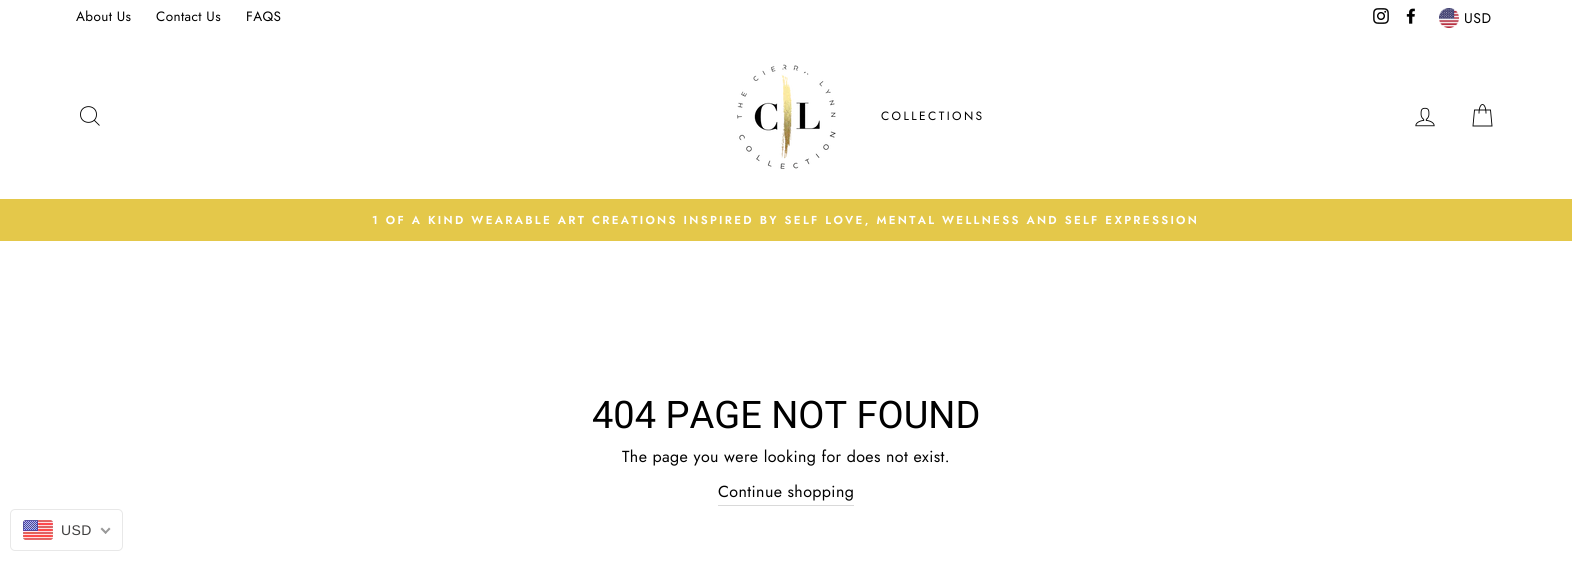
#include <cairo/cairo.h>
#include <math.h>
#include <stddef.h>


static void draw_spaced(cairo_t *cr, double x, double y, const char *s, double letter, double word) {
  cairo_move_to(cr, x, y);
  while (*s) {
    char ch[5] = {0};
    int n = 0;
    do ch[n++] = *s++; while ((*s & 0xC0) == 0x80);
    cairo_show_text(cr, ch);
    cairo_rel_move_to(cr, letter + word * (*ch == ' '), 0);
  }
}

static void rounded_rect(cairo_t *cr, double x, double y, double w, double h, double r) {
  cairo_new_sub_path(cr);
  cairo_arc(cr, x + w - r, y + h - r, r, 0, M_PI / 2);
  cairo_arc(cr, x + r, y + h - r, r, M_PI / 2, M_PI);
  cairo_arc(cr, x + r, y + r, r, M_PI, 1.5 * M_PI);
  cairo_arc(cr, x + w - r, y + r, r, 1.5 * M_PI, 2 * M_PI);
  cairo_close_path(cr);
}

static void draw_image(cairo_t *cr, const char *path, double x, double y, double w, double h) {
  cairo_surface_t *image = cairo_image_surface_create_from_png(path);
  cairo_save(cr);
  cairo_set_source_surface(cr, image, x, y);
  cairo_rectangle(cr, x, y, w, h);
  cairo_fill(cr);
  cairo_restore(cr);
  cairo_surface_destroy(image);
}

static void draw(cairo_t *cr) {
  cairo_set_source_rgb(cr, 1, 1, 1);
  cairo_paint(cr);
  draw_image(cr, "images/1.png", 1373, 8, 16, 16);
  draw_image(cr, "images/2.png", 1406, 8, 9, 16);
  draw_image(cr, "images/3.png", 1439, 8, 20, 20);
  cairo_new_path(cr);
  cairo_move_to(cr, 96.5, 114.5);
  cairo_curve_to(cr, 96.5, 125, 80.5, 125, 80.5, 114.5);
  cairo_curve_to(cr, 80.5, 104, 96.5, 104, 96.5, 114.5);
  cairo_close_path(cr);
  cairo_move_to(cr, 99.5, 125.5);
  cairo_line_to(cr, 94.5, 120.5);
  cairo_set_source_rgb(cr, 0, 0, 0);
  cairo_set_line_width(cr, 0.9);
  cairo_stroke(cr);
  draw_image(cr, "images/4.png", 737, 64, 99, 105);
  draw_image(cr, "images/5.png", 1415, 107, 20, 20);
  cairo_new_path(cr);
  cairo_move_to(cr, 1479, 113.5);
  cairo_curve_to(cr, 1479, 101.5, 1486, 101.5, 1486, 113.5);
  cairo_move_to(cr, 1474.5, 110);
  cairo_line_to(cr, 1490.5, 110);
  cairo_line_to(cr, 1492, 126);
  cairo_line_to(cr, 1473, 126);
  cairo_close_path(cr);
  cairo_stroke(cr);
  cairo_set_source_rgb(cr, 228 / 255.0, 200 / 255.0, 74 / 255.0);
  cairo_rectangle(cr, 0, 199, 1572, 42);
  cairo_fill(cr);
  cairo_set_source_rgb(cr, 217 / 255.0, 217 / 255.0, 217 / 255.0);
  cairo_rectangle(cr, 718, 505, 136, 1);
  cairo_fill(cr);
  rounded_rect(cr, 10.5, 509.5, 112, 41, 4.5);
  cairo_set_source_rgb(cr, 232 / 255.0, 232 / 255.0, 232 / 255.0);
  cairo_set_line_width(cr, 1);
  cairo_stroke(cr);
  draw_image(cr, "images/6.png", 23, 520, 30, 20);
  cairo_set_source_rgb(cr, 153 / 255.0, 153 / 255.0, 153 / 255.0);
  cairo_new_path(cr);
  cairo_move_to(cr, 109, 527.5);
  cairo_line_to(cr, 110.5, 529);
  cairo_line_to(cr, 105.5, 534);
  cairo_line_to(cr, 104.5, 532.5);
  cairo_close_path(cr);
  cairo_fill(cr);
  cairo_new_path(cr);
  cairo_move_to(cr, 102, 527.5);
  cairo_line_to(cr, 107, 532.5);
  cairo_line_to(cr, 105.5, 534);
  cairo_line_to(cr, 100.5, 529);
  cairo_close_path(cr);
  cairo_fill(cr);
  cairo_select_font_face(cr, "Jost", CAIRO_FONT_SLANT_NORMAL, CAIRO_FONT_WEIGHT_NORMAL);
  cairo_set_font_size(cr, 13.5);
  cairo_set_source_rgb(cr, 0, 0, 0);
  draw_spaced(cr, 76, 21, "About Us", 0.4, 0);
  draw_spaced(cr, 156, 21, "Contact Us", 0.4, 0);
  draw_spaced(cr, 246, 21, "FAQS", 0.4, 0);
  cairo_set_font_size(cr, 14);
  draw_spaced(cr, 1464, 23, "USD", 0.5, 0);
  cairo_set_font_size(cr, 12);
  draw_spaced(cr, 881, 120, "COLLECTIONS", 2.4, 0);
  cairo_select_font_face(cr, "Jost SemiBold", CAIRO_FONT_SLANT_NORMAL, CAIRO_FONT_WEIGHT_NORMAL);
  cairo_set_font_size(cr, 11.55);
  cairo_set_source_rgb(cr, 1, 1, 1);
  draw_spaced(cr, 372, 224, "1 OF A KIND WEARABLE ART CREATIONS INSPIRED BY SELF LOVE, MENTAL WELLNESS AND SELF EXPRESSION", 2.3, 0);
  cairo_select_font_face(cr, "Roboto", CAIRO_FONT_SLANT_NORMAL, CAIRO_FONT_WEIGHT_NORMAL);
  cairo_set_font_size(cr, 38);
  cairo_set_source_rgb(cr, 0, 0, 0);
  cairo_move_to(cr, 592, 428);
  cairo_show_text(cr, "404 PAGE NOT FOUND");
  cairo_select_font_face(cr, "Jost", CAIRO_FONT_SLANT_NORMAL, CAIRO_FONT_WEIGHT_NORMAL);
  cairo_set_font_size(cr, 16);
  draw_spaced(cr, 622, 462, "The page you were looking for does not exist.", 0.4, 0);
  draw_spaced(cr, 718, 497, "Continue shopping", 0.4, 0);
  cairo_select_font_face(cr, "Liberation Sans", CAIRO_FONT_SLANT_NORMAL, CAIRO_FONT_WEIGHT_NORMAL);
  cairo_set_font_size(cr, 14);
  cairo_set_source_rgb(cr, 64 / 255.0, 63 / 255.0, 63 / 255.0);
  draw_spaced(cr, 61, 535, "USD", 0.4, 0);
}

int main(void) {
  cairo_surface_t *surface = cairo_image_surface_create(CAIRO_FORMAT_RGB24, 1572, 561);
  cairo_t *cr = cairo_create(surface);
  cairo_font_options_t *options = cairo_font_options_create();
  cairo_font_options_set_hint_metrics(options, CAIRO_HINT_METRICS_OFF);
  cairo_font_options_set_hint_style(options, CAIRO_HINT_STYLE_NONE);
  cairo_set_font_options(cr, options);
  cairo_set_miter_limit(cr, 4);
  draw(cr);
  cairo_surface_write_to_png(surface, "out.png");
  cairo_font_options_destroy(options);
  cairo_destroy(cr);
  cairo_surface_destroy(surface);
  return 0;
}
